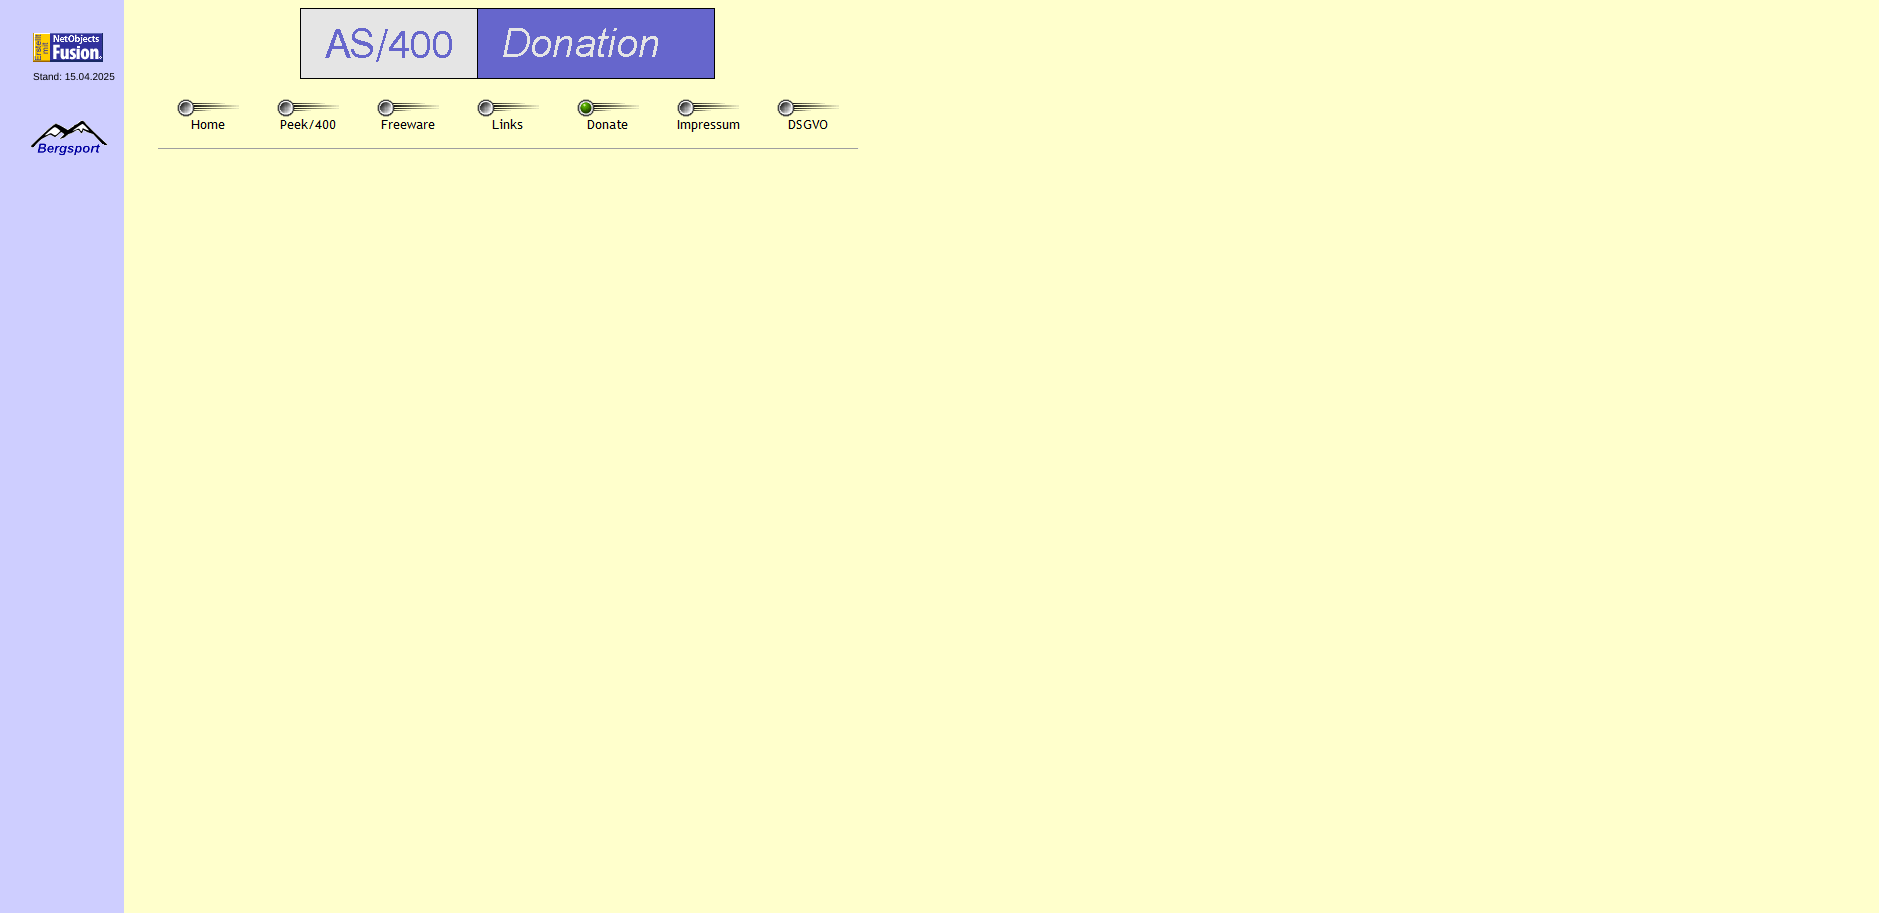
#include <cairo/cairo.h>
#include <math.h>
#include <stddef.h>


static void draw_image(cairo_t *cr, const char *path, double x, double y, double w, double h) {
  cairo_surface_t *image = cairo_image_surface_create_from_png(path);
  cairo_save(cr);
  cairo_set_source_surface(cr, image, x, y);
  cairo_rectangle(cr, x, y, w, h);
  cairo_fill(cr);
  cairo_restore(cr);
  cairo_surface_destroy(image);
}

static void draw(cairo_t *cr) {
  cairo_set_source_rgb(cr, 1, 1, 204 / 255.0);
  cairo_paint(cr);
  cairo_set_source_rgb(cr, 206 / 255.0, 206 / 255.0, 1);
  cairo_rectangle(cr, 0, 0, 124, 913);
  cairo_fill(cr);
  draw_image(cr, "images/1.png", 33, 33, 70, 29);
  draw_image(cr, "images/2.png", 30, 120, 78, 36);
  draw_image(cr, "images/3.png", 300, 8, 415, 71);
  draw_image(cr, "images/4.png", 177, 99, 62, 30);
  draw_image(cr, "images/5.png", 277, 99, 62, 30);
  draw_image(cr, "images/6.png", 377, 99, 62, 30);
  draw_image(cr, "images/7.png", 477, 99, 62, 30);
  draw_image(cr, "images/8.png", 577, 99, 62, 30);
  draw_image(cr, "images/9.png", 677, 99, 63, 33);
  draw_image(cr, "images/10.png", 777, 99, 62, 30);
  cairo_set_source_rgb(cr, 159 / 255.0, 159 / 255.0, 159 / 255.0);
  cairo_rectangle(cr, 158, 148, 701, 1);
  cairo_fill(cr);
  cairo_set_source_rgb(cr, 238 / 255.0, 238 / 255.0, 238 / 255.0);
  cairo_rectangle(cr, 858, 148, 1, 1);
  cairo_fill(cr);
  cairo_select_font_face(cr, "Liberation Sans", CAIRO_FONT_SLANT_NORMAL, CAIRO_FONT_WEIGHT_NORMAL);
  cairo_set_font_size(cr, 10);
  cairo_set_source_rgb(cr, 0, 0, 0);
  cairo_move_to(cr, 33, 80);
  cairo_show_text(cr, "Stand: 15.04.2025");
}

int main(void) {
  cairo_surface_t *surface = cairo_image_surface_create(CAIRO_FORMAT_RGB24, 1879, 913);
  cairo_t *cr = cairo_create(surface);
  cairo_font_options_t *options = cairo_font_options_create();
  cairo_font_options_set_hint_metrics(options, CAIRO_HINT_METRICS_OFF);
  cairo_font_options_set_hint_style(options, CAIRO_HINT_STYLE_NONE);
  cairo_set_font_options(cr, options);
  cairo_set_miter_limit(cr, 4);
  draw(cr);
  cairo_surface_write_to_png(surface, "out.png");
  cairo_font_options_destroy(options);
  cairo_destroy(cr);
  cairo_surface_destroy(surface);
  return 0;
}
